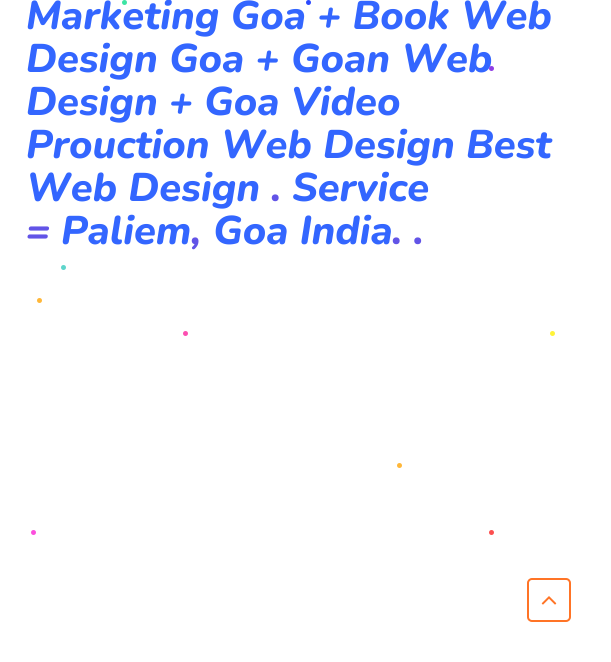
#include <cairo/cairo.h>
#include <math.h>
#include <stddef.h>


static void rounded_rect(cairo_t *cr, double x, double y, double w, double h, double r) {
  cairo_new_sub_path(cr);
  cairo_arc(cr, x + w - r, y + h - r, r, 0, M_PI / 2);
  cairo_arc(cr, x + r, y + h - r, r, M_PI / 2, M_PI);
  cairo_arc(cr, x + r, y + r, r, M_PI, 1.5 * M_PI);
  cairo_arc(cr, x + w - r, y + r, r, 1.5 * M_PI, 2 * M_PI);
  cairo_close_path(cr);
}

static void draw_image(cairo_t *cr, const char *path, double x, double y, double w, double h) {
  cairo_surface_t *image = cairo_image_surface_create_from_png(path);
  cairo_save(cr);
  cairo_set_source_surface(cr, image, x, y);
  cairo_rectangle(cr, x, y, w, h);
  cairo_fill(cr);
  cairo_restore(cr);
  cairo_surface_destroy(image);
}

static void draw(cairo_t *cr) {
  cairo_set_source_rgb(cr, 1, 1, 1);
  cairo_paint(cr);
  cairo_set_source_rgb(cr, 94 / 255.0, 213 / 255.0, 203 / 255.0);
  cairo_arc(cr, 63.5, 267.5, 2.5, 0, 2 * M_PI);
  cairo_fill(cr);
  cairo_set_source_rgb(cr, 1, 183 / 255.0, 57 / 255.0);
  cairo_arc(cr, 39.5, 300.5, 2.5, 0, 2 * M_PI);
  cairo_fill(cr);
  cairo_set_source_rgb(cr, 252 / 255.0, 79 / 255.0, 177 / 255.0);
  cairo_arc(cr, 185.5, 333.5, 2.5, 0, 2 * M_PI);
  cairo_fill(cr);
  cairo_set_source_rgb(cr, 1, 243 / 255.0, 57 / 255.0);
  cairo_arc(cr, 552.5, 333.5, 2.5, 0, 2 * M_PI);
  cairo_fill(cr);
  cairo_set_source_rgb(cr, 1, 183 / 255.0, 57 / 255.0);
  cairo_arc(cr, 399.5, 465.5, 2.5, 0, 2 * M_PI);
  cairo_fill(cr);
  cairo_set_source_rgb(cr, 252 / 255.0, 79 / 255.0, 221 / 255.0);
  cairo_arc(cr, 33.5, 532.5, 2.5, 0, 2 * M_PI);
  cairo_fill(cr);
  cairo_set_source_rgb(cr, 252 / 255.0, 79 / 255.0, 79 / 255.0);
  cairo_arc(cr, 491.5, 532.5, 2.5, 0, 2 * M_PI);
  cairo_fill(cr);
  rounded_rect(cr, 528, 579, 42, 42, 4);
  cairo_set_source_rgb(cr, 1, 116 / 255.0, 38 / 255.0);
  cairo_stroke(cr);
  draw_image(cr, "images/1.png", 541, 596, 16, 9);
  cairo_select_font_face(cr, "Nunito ExtraBold", CAIRO_FONT_SLANT_ITALIC, CAIRO_FONT_WEIGHT_NORMAL);
  cairo_set_font_size(cr, 40);
  cairo_set_source_rgb(cr, 51 / 255.0, 102 / 255.0, 1);
  cairo_move_to(cr, 26, 29);
  cairo_show_text(cr, "Marketing Goa + Book Web");
  cairo_move_to(cr, 26, 72);
  cairo_show_text(cr, "Design Goa + Goan Web");
  cairo_move_to(cr, 26, 115);
  cairo_show_text(cr, "Design + Goa Video");
  cairo_move_to(cr, 26, 158);
  cairo_show_text(cr, "Prouction Web Design Best");
  cairo_move_to(cr, 26, 201);
  cairo_show_text(cr, "Web Design");
  cairo_set_source_rgb(cr, 98 / 255.0, 84 / 255.0, 231 / 255.0);
  cairo_move_to(cr, 271, 201);
  cairo_show_text(cr, ".");
  cairo_set_source_rgb(cr, 51 / 255.0, 102 / 255.0, 1);
  cairo_move_to(cr, 292, 201);
  cairo_show_text(cr, "Service");
  cairo_set_source_rgb(cr, 98 / 255.0, 84 / 255.0, 231 / 255.0);
  cairo_move_to(cr, 26, 244);
  cairo_show_text(cr, "=");
  cairo_set_source_rgb(cr, 51 / 255.0, 102 / 255.0, 1);
  cairo_move_to(cr, 61, 244);
  cairo_show_text(cr, "Paliem");
  cairo_move_to(cr, 213, 244);
  cairo_show_text(cr, "Goa India");
  cairo_set_source_rgb(cr, 98 / 255.0, 84 / 255.0, 231 / 255.0);
  cairo_move_to(cr, 191, 244);
  cairo_show_text(cr, ",");
  cairo_move_to(cr, 392, 244);
  cairo_show_text(cr, ". .");
  cairo_set_source_rgb(cr, 61 / 255.0, 228 / 255.0, 163 / 255.0);
  cairo_new_path(cr);
  cairo_arc(cr, 124.5, 2.5, 2.5, 0, 2 * M_PI);
  cairo_fill(cr);
  cairo_set_source_rgb(cr, 44 / 255.0, 74 / 255.0, 1);
  cairo_arc(cr, 308.5, 2.5, 2.5, 0, 2 * M_PI);
  cairo_fill(cr);
  cairo_set_source_rgb(cr, 143 / 255.0, 61 / 255.0, 228 / 255.0);
  cairo_arc(cr, 491.5, 68.5, 2.5, 0, 2 * M_PI);
  cairo_fill(cr);
}

int main(void) {
  cairo_surface_t *surface = cairo_image_surface_create(CAIRO_FORMAT_RGB24, 611, 662);
  cairo_t *cr = cairo_create(surface);
  cairo_font_options_t *options = cairo_font_options_create();
  cairo_font_options_set_hint_metrics(options, CAIRO_HINT_METRICS_OFF);
  cairo_font_options_set_hint_style(options, CAIRO_HINT_STYLE_NONE);
  cairo_set_font_options(cr, options);
  cairo_set_miter_limit(cr, 4);
  draw(cr);
  cairo_surface_write_to_png(surface, "out.png");
  cairo_font_options_destroy(options);
  cairo_destroy(cr);
  cairo_surface_destroy(surface);
  return 0;
}
